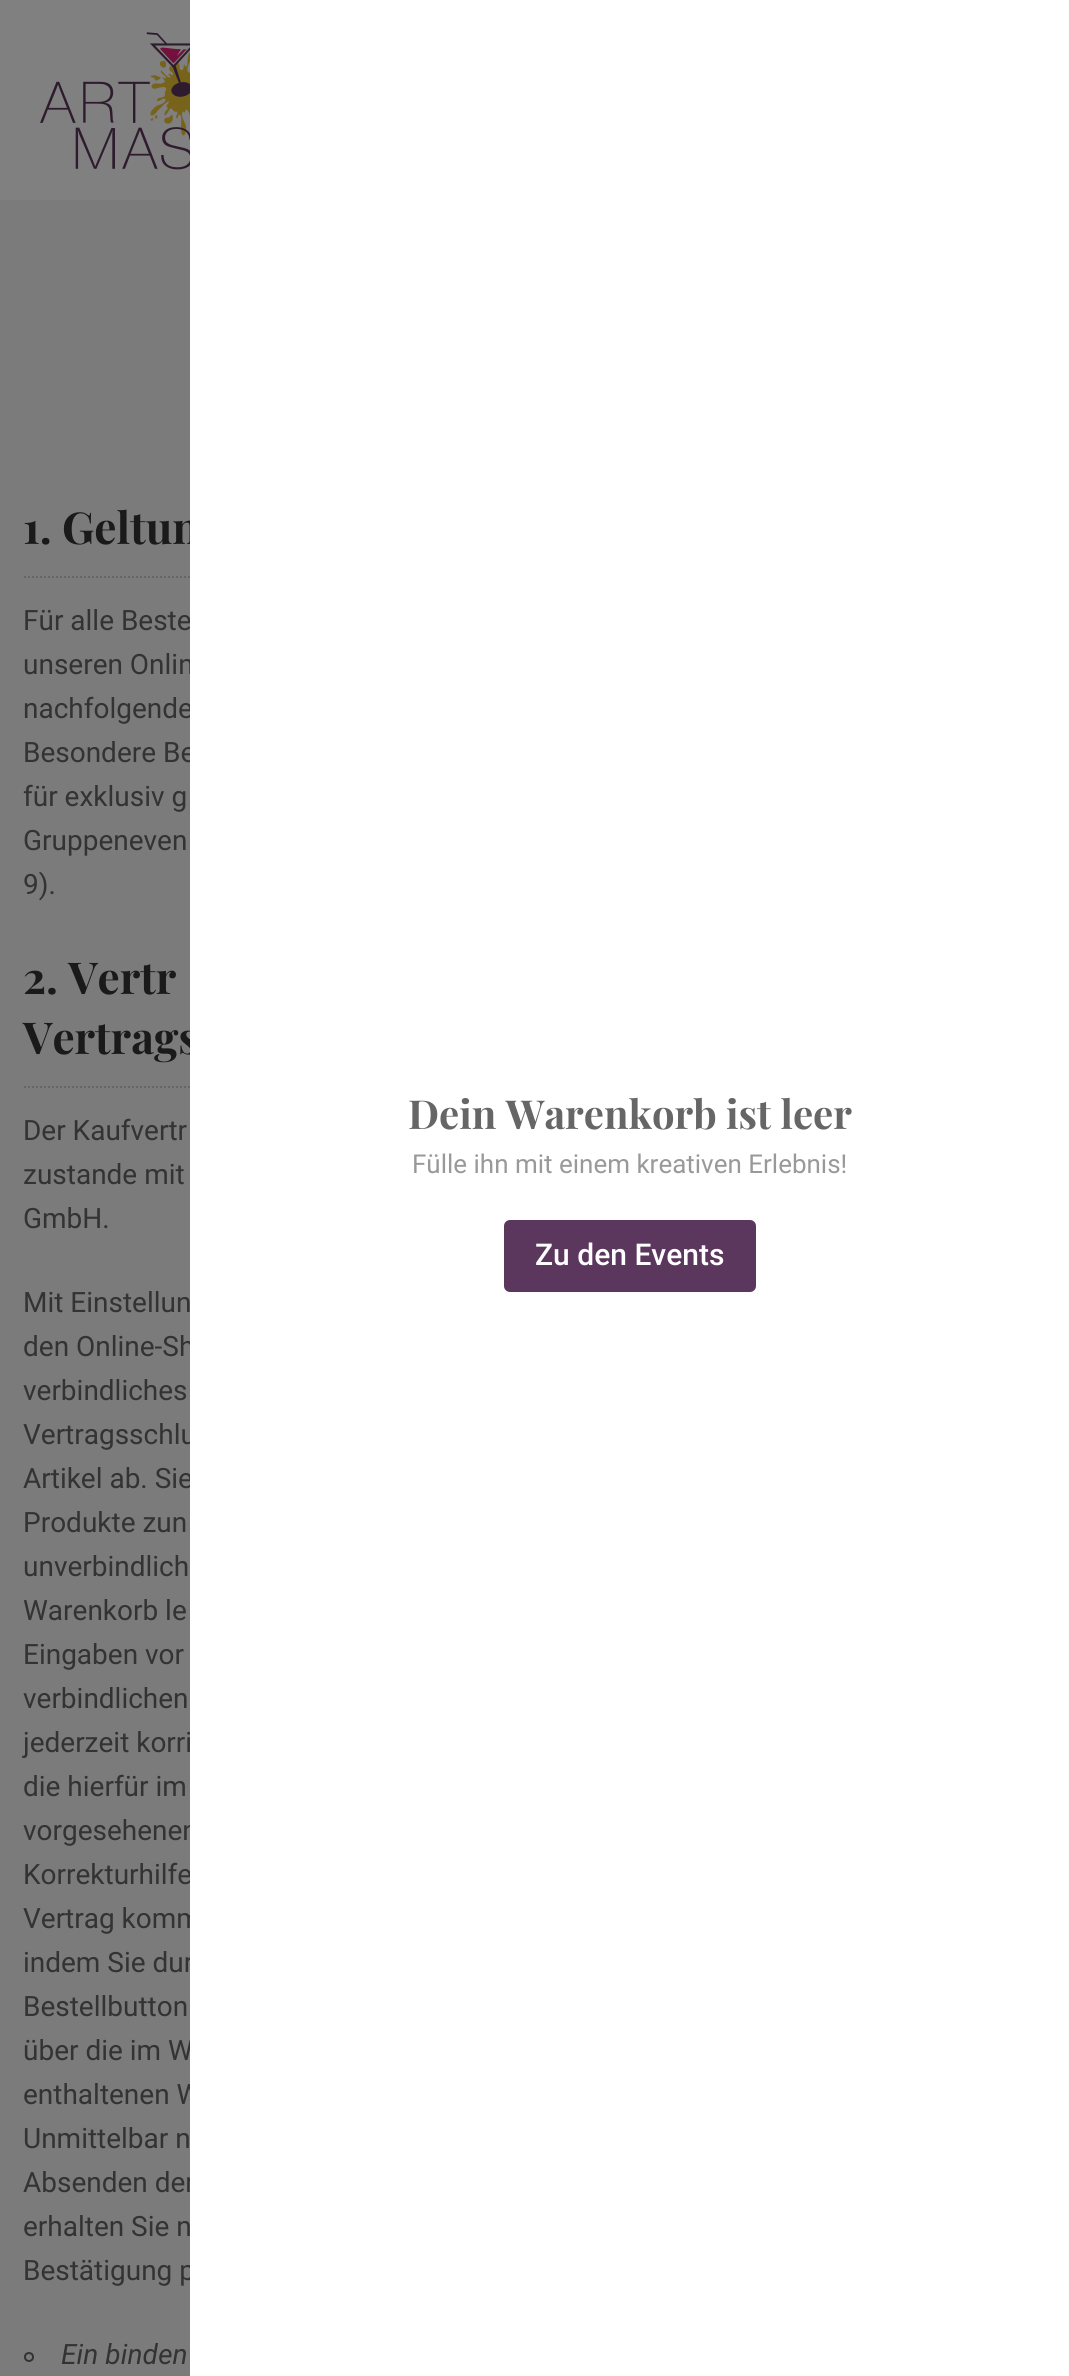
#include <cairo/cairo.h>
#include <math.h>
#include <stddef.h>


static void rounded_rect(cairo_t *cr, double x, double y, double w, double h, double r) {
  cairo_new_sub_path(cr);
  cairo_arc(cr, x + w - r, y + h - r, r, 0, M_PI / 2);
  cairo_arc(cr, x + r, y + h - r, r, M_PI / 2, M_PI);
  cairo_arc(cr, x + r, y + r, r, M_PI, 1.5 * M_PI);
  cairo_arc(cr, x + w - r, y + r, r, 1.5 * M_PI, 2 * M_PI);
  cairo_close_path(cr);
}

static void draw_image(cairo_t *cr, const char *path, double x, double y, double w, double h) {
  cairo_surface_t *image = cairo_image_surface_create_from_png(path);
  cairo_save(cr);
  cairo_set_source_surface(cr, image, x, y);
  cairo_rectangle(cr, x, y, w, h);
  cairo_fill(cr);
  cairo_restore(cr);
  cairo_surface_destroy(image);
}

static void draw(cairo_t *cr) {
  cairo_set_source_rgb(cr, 123 / 255.0, 123 / 255.0, 123 / 255.0);
  cairo_paint(cr);
  cairo_set_source_rgb(cr, 128 / 255.0, 128 / 255.0, 128 / 255.0);
  cairo_rectangle(cr, 0, 0, 190, 200);
  cairo_fill(cr);
  draw_image(cr, "images/1.png", 40, 32, 150, 138);
  cairo_new_path(cr);
  cairo_move_to(cr, 24, 577);
  cairo_line_to(cr, 412, 577);
  cairo_set_source_rgb(cr, 102 / 255.0, 102 / 255.0, 102 / 255.0);
  cairo_set_dash(cr, (double[]){2, 2}, 2, 0);
  cairo_stroke(cr);
  cairo_new_path(cr);
  cairo_move_to(cr, 24, 1087);
  cairo_line_to(cr, 412, 1087);
  cairo_stroke(cr);
  cairo_arc(cr, 29, 2357, 4, 0, 2 * M_PI);
  cairo_set_source_rgb(cr, 51 / 255.0, 51 / 255.0, 51 / 255.0);
  cairo_set_dash(cr, NULL, 0, 0);
  cairo_stroke(cr);
  cairo_select_font_face(cr, "Playfair Display", CAIRO_FONT_SLANT_NORMAL, CAIRO_FONT_WEIGHT_BOLD);
  cairo_set_font_size(cr, 44);
  cairo_set_source_rgb(cr, 26 / 255.0, 26 / 255.0, 26 / 255.0);
  cairo_move_to(cr, 23, 544);
  cairo_show_text(cr, "1. Geltun");
  cairo_select_font_face(cr, "Roboto", CAIRO_FONT_SLANT_NORMAL, CAIRO_FONT_WEIGHT_NORMAL);
  cairo_set_font_size(cr, 28);
  cairo_set_source_rgb(cr, 51 / 255.0, 51 / 255.0, 51 / 255.0);
  cairo_move_to(cr, 23, 630);
  cairo_show_text(cr, "Für alle Beste");
  cairo_move_to(cr, 23, 674);
  cairo_show_text(cr, "unseren Onlin");
  cairo_move_to(cr, 23, 718);
  cairo_show_text(cr, "nachfolgende");
  cairo_move_to(cr, 23, 762);
  cairo_show_text(cr, "Besondere Be");
  cairo_move_to(cr, 23, 806);
  cairo_show_text(cr, "für exklusiv g");
  cairo_move_to(cr, 23, 850);
  cairo_show_text(cr, "Gruppeneven");
  cairo_move_to(cr, 23, 894);
  cairo_show_text(cr, "9).");
  cairo_select_font_face(cr, "Playfair Display", CAIRO_FONT_SLANT_NORMAL, CAIRO_FONT_WEIGHT_BOLD);
  cairo_set_font_size(cr, 44);
  cairo_set_source_rgb(cr, 26 / 255.0, 26 / 255.0, 26 / 255.0);
  cairo_move_to(cr, 23, 994);
  cairo_show_text(cr, "2. Vertr");
  cairo_move_to(cr, 23, 1054);
  cairo_show_text(cr, "Vertrags");
  cairo_select_font_face(cr, "Roboto", CAIRO_FONT_SLANT_NORMAL, CAIRO_FONT_WEIGHT_NORMAL);
  cairo_set_font_size(cr, 28);
  cairo_set_source_rgb(cr, 51 / 255.0, 51 / 255.0, 51 / 255.0);
  cairo_move_to(cr, 23, 1140);
  cairo_show_text(cr, "Der Kaufvertr");
  cairo_move_to(cr, 23, 1184);
  cairo_show_text(cr, "zustande mit");
  cairo_move_to(cr, 23, 1228);
  cairo_show_text(cr, "GmbH.");
  cairo_move_to(cr, 23, 1312);
  cairo_show_text(cr, "Mit Einstellun");
  cairo_move_to(cr, 23, 1356);
  cairo_show_text(cr, "den Online-Sh");
  cairo_move_to(cr, 23, 1400);
  cairo_show_text(cr, "verbindliches");
  cairo_move_to(cr, 23, 1444);
  cairo_show_text(cr, "Vertragsschlu");
  cairo_move_to(cr, 23, 1488);
  cairo_show_text(cr, "Artikel ab. Sie");
  cairo_move_to(cr, 23, 1532);
  cairo_show_text(cr, "Produkte zun");
  cairo_move_to(cr, 23, 1576);
  cairo_show_text(cr, "unverbindlich");
  cairo_move_to(cr, 23, 1620);
  cairo_show_text(cr, "Warenkorb le");
  cairo_move_to(cr, 23, 1664);
  cairo_show_text(cr, "Eingaben vor");
  cairo_move_to(cr, 23, 1708);
  cairo_show_text(cr, "verbindlichen");
  cairo_move_to(cr, 23, 1752);
  cairo_show_text(cr, "jederzeit korri");
  cairo_move_to(cr, 23, 1796);
  cairo_show_text(cr, "die hierfür im");
  cairo_move_to(cr, 23, 1840);
  cairo_show_text(cr, "vorgesehenen");
  cairo_move_to(cr, 23, 1884);
  cairo_show_text(cr, "Korrekturhilfe");
  cairo_move_to(cr, 23, 1928);
  cairo_show_text(cr, "Vertrag komm");
  cairo_move_to(cr, 23, 1972);
  cairo_show_text(cr, "indem Sie dur");
  cairo_move_to(cr, 23, 2016);
  cairo_show_text(cr, "Bestellbutton");
  cairo_move_to(cr, 23, 2060);
  cairo_show_text(cr, "über die im W");
  cairo_move_to(cr, 23, 2104);
  cairo_show_text(cr, "enthaltenen W");
  cairo_move_to(cr, 23, 2148);
  cairo_show_text(cr, "Unmittelbar n");
  cairo_move_to(cr, 23, 2192);
  cairo_show_text(cr, "Absenden der");
  cairo_move_to(cr, 23, 2236);
  cairo_show_text(cr, "erhalten Sie n");
  cairo_move_to(cr, 23, 2280);
  cairo_show_text(cr, "Bestätigung p");
  cairo_select_font_face(cr, "Roboto", CAIRO_FONT_SLANT_ITALIC, CAIRO_FONT_WEIGHT_NORMAL);
  cairo_move_to(cr, 61, 2364);
  cairo_show_text(cr, "Ein binden");
  cairo_set_source_rgb(cr, 1, 1, 1);
  cairo_rectangle(cr, 190, 0, 879, 2376);
  cairo_fill(cr);
  cairo_select_font_face(cr, "Playfair Display", CAIRO_FONT_SLANT_NORMAL, CAIRO_FONT_WEIGHT_BOLD);
  cairo_set_font_size(cr, 40);
  cairo_set_source_rgb(cr, 102 / 255.0, 102 / 255.0, 102 / 255.0);
  cairo_move_to(cr, 408, 1129);
  cairo_show_text(cr, "Dein Warenkorb ist leer");
  cairo_select_font_face(cr, "Roboto", CAIRO_FONT_SLANT_NORMAL, CAIRO_FONT_WEIGHT_NORMAL);
  cairo_set_font_size(cr, 26);
  cairo_set_source_rgb(cr, 153 / 255.0, 153 / 255.0, 153 / 255.0);
  cairo_move_to(cr, 412, 1173);
  cairo_show_text(cr, "Fülle ihn mit einem kreativen Erlebnis!");
  cairo_set_source_rgb(cr, 91 / 255.0, 55 / 255.0, 93 / 255.0);
  rounded_rect(cr, 504, 1220, 252, 72, 6);
  cairo_fill(cr);
  cairo_select_font_face(cr, "Roboto Medium", CAIRO_FONT_SLANT_NORMAL, CAIRO_FONT_WEIGHT_NORMAL);
  cairo_set_font_size(cr, 30);
  cairo_set_source_rgb(cr, 1, 1, 1);
  cairo_move_to(cr, 535, 1265);
  cairo_show_text(cr, "Zu den Events");
}

int main(void) {
  cairo_surface_t *surface = cairo_image_surface_create(CAIRO_FORMAT_RGB24, 1069, 2376);
  cairo_t *cr = cairo_create(surface);
  cairo_font_options_t *options = cairo_font_options_create();
  cairo_font_options_set_hint_metrics(options, CAIRO_HINT_METRICS_OFF);
  cairo_font_options_set_hint_style(options, CAIRO_HINT_STYLE_NONE);
  cairo_set_font_options(cr, options);
  cairo_set_miter_limit(cr, 4);
  draw(cr);
  cairo_surface_write_to_png(surface, "out.png");
  cairo_font_options_destroy(options);
  cairo_destroy(cr);
  cairo_surface_destroy(surface);
  return 0;
}
